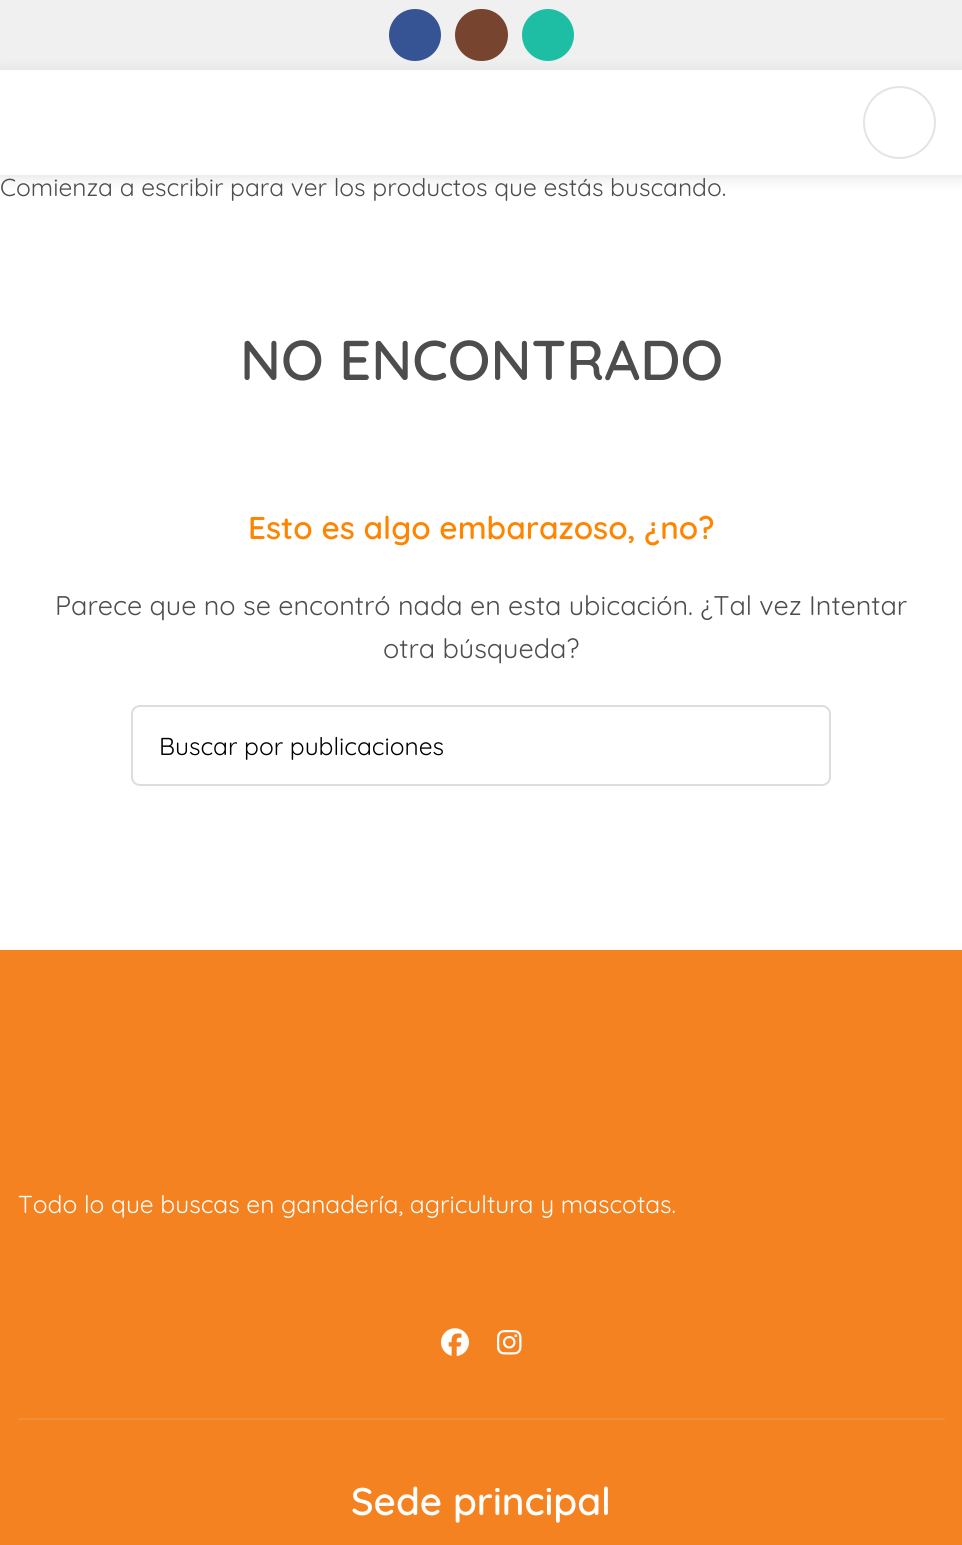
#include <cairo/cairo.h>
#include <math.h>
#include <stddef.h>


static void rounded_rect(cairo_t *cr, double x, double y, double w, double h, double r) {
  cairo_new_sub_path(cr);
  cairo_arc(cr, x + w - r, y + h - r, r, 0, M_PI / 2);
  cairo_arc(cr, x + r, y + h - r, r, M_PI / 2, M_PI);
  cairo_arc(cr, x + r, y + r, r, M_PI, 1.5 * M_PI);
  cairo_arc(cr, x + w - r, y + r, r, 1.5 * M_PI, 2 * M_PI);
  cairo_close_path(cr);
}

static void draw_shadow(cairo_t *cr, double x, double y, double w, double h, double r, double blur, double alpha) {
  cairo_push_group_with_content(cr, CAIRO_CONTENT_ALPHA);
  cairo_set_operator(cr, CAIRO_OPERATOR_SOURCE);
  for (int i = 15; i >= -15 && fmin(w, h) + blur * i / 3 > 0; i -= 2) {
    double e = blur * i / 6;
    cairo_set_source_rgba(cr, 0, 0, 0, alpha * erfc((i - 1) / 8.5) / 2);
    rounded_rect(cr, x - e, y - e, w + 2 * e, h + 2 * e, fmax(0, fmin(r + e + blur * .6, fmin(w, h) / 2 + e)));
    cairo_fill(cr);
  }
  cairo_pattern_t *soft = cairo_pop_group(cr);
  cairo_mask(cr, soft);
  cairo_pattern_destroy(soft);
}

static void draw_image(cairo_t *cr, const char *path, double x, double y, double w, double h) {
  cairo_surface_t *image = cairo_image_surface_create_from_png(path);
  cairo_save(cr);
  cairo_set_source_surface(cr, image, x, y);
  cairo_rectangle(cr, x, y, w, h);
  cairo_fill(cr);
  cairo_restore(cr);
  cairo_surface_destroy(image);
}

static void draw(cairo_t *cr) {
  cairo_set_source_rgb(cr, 1, 1, 1);
  cairo_paint(cr);
  cairo_set_source_rgb(cr, 240 / 255.0, 240 / 255.0, 240 / 255.0);
  cairo_rectangle(cr, 0, 0, 962, 70);
  cairo_fill(cr);
  cairo_set_source_rgb(cr, 0, 0, 0);
  draw_shadow(cr, 0, 72, 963, 107, 0, 7, 0.1);
  cairo_set_source_rgb(cr, 54 / 255.0, 84 / 255.0, 147 / 255.0);
  cairo_arc(cr, 415, 35, 26, 0, 2 * M_PI);
  cairo_fill(cr);
  cairo_set_source_rgb(cr, 119 / 255.0, 68 / 255.0, 48 / 255.0);
  rounded_rect(cr, 455, 9, 53, 52, 26);
  cairo_fill(cr);
  cairo_set_source_rgb(cr, 30 / 255.0, 190 / 255.0, 165 / 255.0);
  cairo_arc(cr, 548, 35, 26, 0, 2 * M_PI);
  cairo_fill(cr);
  cairo_set_source_rgb(cr, 1, 1, 1);
  cairo_rectangle(cr, 0, 70, 962, 105);
  cairo_fill(cr);
  cairo_set_source_rgb(cr, 238 / 255.0, 238 / 255.0, 238 / 255.0);
  cairo_rectangle(cr, 0, 175, 962, 2);
  cairo_fill(cr);
  cairo_arc(cr, 899.5, 122.5, 35.5, 0, 2 * M_PI);
  cairo_set_source_rgb(cr, 228 / 255.0, 228 / 255.0, 228 / 255.0);
  cairo_stroke(cr);
  rounded_rect(cr, 132, 706, 698, 79, 8);
  cairo_set_source_rgb(cr, 221 / 255.0, 221 / 255.0, 221 / 255.0);
  cairo_stroke(cr);
  cairo_set_source_rgb(cr, 245 / 255.0, 130 / 255.0, 32 / 255.0);
  cairo_rectangle(cr, 0, 950, 962, 595);
  cairo_fill(cr);
  draw_image(cr, "images/1.png", 441, 1328, 28, 29);
  draw_image(cr, "images/2.png", 497, 1330, 25, 25);
  cairo_set_source_rgb(cr, 243 / 255.0, 142 / 255.0, 56 / 255.0);
  cairo_rectangle(cr, 18, 1418, 927, 2);
  cairo_fill(cr);
  cairo_select_font_face(cr, "Quicksand", CAIRO_FONT_SLANT_NORMAL, CAIRO_FONT_WEIGHT_NORMAL);
  cairo_set_font_size(cr, 24.5);
  cairo_set_source_rgb(cr, 77 / 255.0, 77 / 255.0, 77 / 255.0);
  cairo_move_to(cr, 0, 196);
  cairo_show_text(cr, "Comienza a escribir para ver los productos que estás buscando.");
  cairo_select_font_face(cr, "Quicksand SemiBold", CAIRO_FONT_SLANT_NORMAL, CAIRO_FONT_WEIGHT_NORMAL);
  cairo_set_font_size(cr, 56);
  cairo_move_to(cr, 240, 380);
  cairo_show_text(cr, "NO ENCONTRADO");
  cairo_set_font_size(cr, 31.5);
  cairo_set_source_rgb(cr, 1, 133 / 255.0, 0);
  cairo_move_to(cr, 248, 539);
  cairo_show_text(cr, "Esto es algo embarazoso, ¿no?");
  cairo_select_font_face(cr, "Quicksand", CAIRO_FONT_SLANT_NORMAL, CAIRO_FONT_WEIGHT_NORMAL);
  cairo_set_font_size(cr, 26.95);
  cairo_set_source_rgb(cr, 77 / 255.0, 77 / 255.0, 77 / 255.0);
  cairo_move_to(cr, 55, 615);
  cairo_show_text(cr, "Parece que no se encontró nada en esta ubicación. ¿Tal vez Intentar");
  cairo_move_to(cr, 383, 658);
  cairo_show_text(cr, "otra búsqueda?");
  cairo_set_font_size(cr, 24.5);
  cairo_set_source_rgb(cr, 0, 0, 0);
  cairo_move_to(cr, 159, 755);
  cairo_show_text(cr, "Buscar por publicaciones");
  cairo_set_source_rgb(cr, 1, 1, 1);
  cairo_move_to(cr, 18, 1213);
  cairo_show_text(cr, "Todo lo que buscas en ganadería, agricultura y mascotas.");
  cairo_select_font_face(cr, "Quicksand SemiBold", CAIRO_FONT_SLANT_NORMAL, CAIRO_FONT_WEIGHT_NORMAL);
  cairo_set_font_size(cr, 38.5);
  cairo_move_to(cr, 351, 1515);
  cairo_show_text(cr, "Sede principal");
}

int main(void) {
  cairo_surface_t *surface = cairo_image_surface_create(CAIRO_FORMAT_RGB24, 962, 1545);
  cairo_t *cr = cairo_create(surface);
  cairo_font_options_t *options = cairo_font_options_create();
  cairo_font_options_set_hint_metrics(options, CAIRO_HINT_METRICS_OFF);
  cairo_font_options_set_hint_style(options, CAIRO_HINT_STYLE_NONE);
  cairo_set_font_options(cr, options);
  cairo_set_miter_limit(cr, 4);
  draw(cr);
  cairo_surface_write_to_png(surface, "out.png");
  cairo_font_options_destroy(options);
  cairo_destroy(cr);
  cairo_surface_destroy(surface);
  return 0;
}
